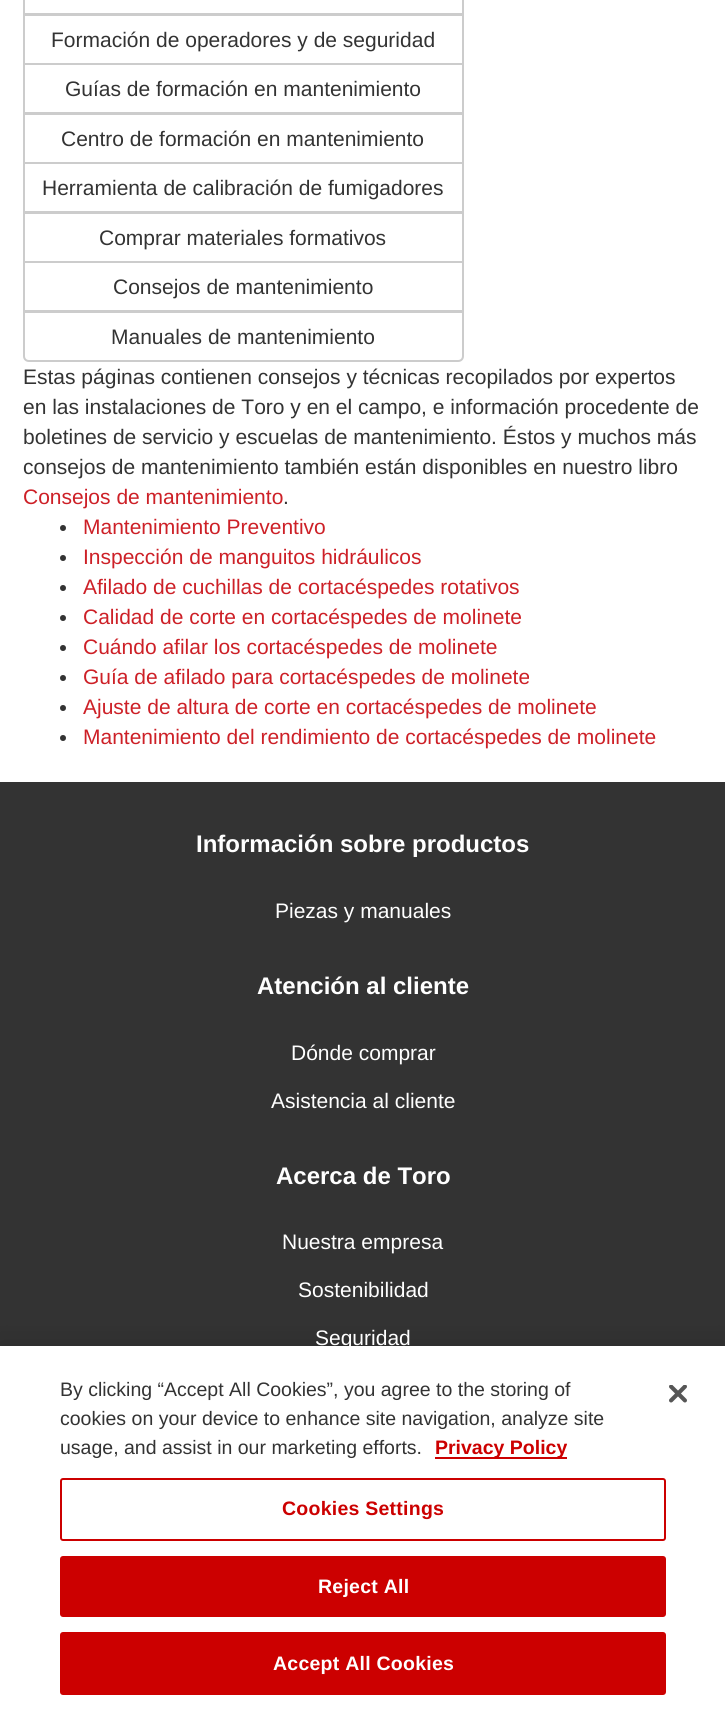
#include <cairo/cairo.h>
#include <math.h>
#include <stddef.h>


static void draw_spaced(cairo_t *cr, double x, double y, const char *s, double letter, double word) {
  cairo_move_to(cr, x, y);
  while (*s) {
    char ch[5] = {0};
    int n = 0;
    do ch[n++] = *s++; while ((*s & 0xC0) == 0x80);
    cairo_show_text(cr, ch);
    cairo_rel_move_to(cr, letter + word * (*ch == ' '), 0);
  }
}

static void rounded_rect(cairo_t *cr, double x, double y, double w, double h, double r) {
  cairo_new_sub_path(cr);
  cairo_arc(cr, x + w - r, y + h - r, r, 0, M_PI / 2);
  cairo_arc(cr, x + r, y + h - r, r, M_PI / 2, M_PI);
  cairo_arc(cr, x + r, y + r, r, M_PI, 1.5 * M_PI);
  cairo_arc(cr, x + w - r, y + r, r, 1.5 * M_PI, 2 * M_PI);
  cairo_close_path(cr);
}

static void draw_shadow(cairo_t *cr, double x, double y, double w, double h, double r, double blur, double alpha) {
  cairo_push_group_with_content(cr, CAIRO_CONTENT_ALPHA);
  cairo_set_operator(cr, CAIRO_OPERATOR_SOURCE);
  for (int i = 15; i >= -15 && fmin(w, h) + blur * i / 3 > 0; i -= 2) {
    double e = blur * i / 6;
    cairo_set_source_rgba(cr, 0, 0, 0, alpha * erfc((i - 1) / 8.5) / 2);
    rounded_rect(cr, x - e, y - e, w + 2 * e, h + 2 * e, fmax(0, fmin(r + e + blur * .6, fmin(w, h) / 2 + e)));
    cairo_fill(cr);
  }
  cairo_pattern_t *soft = cairo_pop_group(cr);
  cairo_mask(cr, soft);
  cairo_pattern_destroy(soft);
}

static void draw_image(cairo_t *cr, const char *path, double x, double y, double w, double h) {
  cairo_surface_t *image = cairo_image_surface_create_from_png(path);
  cairo_save(cr);
  cairo_set_source_surface(cr, image, x, y);
  cairo_rectangle(cr, x, y, w, h);
  cairo_fill(cr);
  cairo_restore(cr);
  cairo_surface_destroy(image);
}

static void draw(cairo_t *cr) {
  cairo_set_source_rgb(cr, 1, 1, 1);
  cairo_paint(cr);
  cairo_rectangle(cr, 24, -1, 439, 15);
  cairo_set_source_rgb(cr, 204 / 255.0, 204 / 255.0, 204 / 255.0);
  cairo_stroke(cr);
  cairo_rectangle(cr, 24, 15, 439, 49);
  cairo_stroke(cr);
  cairo_rectangle(cr, 24, 64, 439, 49);
  cairo_stroke(cr);
  cairo_rectangle(cr, 24, 114, 439, 49);
  cairo_stroke(cr);
  cairo_rectangle(cr, 24, 163, 439, 49);
  cairo_stroke(cr);
  cairo_rectangle(cr, 24, 213, 439, 49);
  cairo_stroke(cr);
  cairo_rectangle(cr, 24, 262, 439, 49);
  cairo_stroke(cr);
  cairo_set_source_rgb(cr, 1, 1, 1);
  cairo_new_path(cr);
  cairo_move_to(cr, 24, 312);
  cairo_line_to(cr, 463, 312);
  cairo_line_to(cr, 463, 356);
  cairo_curve_to(cr, 463, 359, 461, 361, 458, 361);
  cairo_line_to(cr, 29, 361);
  cairo_curve_to(cr, 26, 361, 24, 359, 24, 356);
  cairo_close_path(cr);
  cairo_fill_preserve(cr);
  cairo_set_source_rgb(cr, 204 / 255.0, 204 / 255.0, 204 / 255.0);
  cairo_stroke(cr);
  cairo_set_source_rgb(cr, 51 / 255.0, 51 / 255.0, 51 / 255.0);
  cairo_arc(cr, 63, 528, 3, 0, 2 * M_PI);
  cairo_fill(cr);
  cairo_arc(cr, 63, 558, 3, 0, 2 * M_PI);
  cairo_fill(cr);
  cairo_arc(cr, 63, 588, 3, 0, 2 * M_PI);
  cairo_fill(cr);
  cairo_arc(cr, 63, 618, 3, 0, 2 * M_PI);
  cairo_fill(cr);
  cairo_arc(cr, 63, 648, 3, 0, 2 * M_PI);
  cairo_fill(cr);
  cairo_arc(cr, 63, 678, 3, 0, 2 * M_PI);
  cairo_fill(cr);
  cairo_arc(cr, 63, 708, 3, 0, 2 * M_PI);
  cairo_fill(cr);
  cairo_arc(cr, 63, 738, 3, 0, 2 * M_PI);
  cairo_fill(cr);
  cairo_rectangle(cr, 0, 782, 725, 564);
  cairo_fill(cr);
  cairo_set_source_rgb(cr, 0, 0, 0);
  draw_shadow(cr, 0, 1346, 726, 364, 0, 13.5, 0.2);
  cairo_set_source_rgb(cr, 1, 1, 1);
  cairo_rectangle(cr, 0, 1346, 725, 364);
  cairo_fill(cr);
  cairo_set_source_rgb(cr, 204 / 255.0, 0, 0);
  cairo_rectangle(cr, 435, 1457, 132, 2);
  cairo_fill(cr);
  rounded_rect(cr, 61, 1479, 604, 61, 2);
  cairo_stroke(cr);
  rounded_rect(cr, 61, 1557, 604, 59, 2);
  cairo_fill_preserve(cr);
  cairo_stroke(cr);
  rounded_rect(cr, 61, 1633, 604, 61, 2);
  cairo_fill_preserve(cr);
  cairo_stroke(cr);
  draw_image(cr, "images/1.png", 669, 1385, 18, 18);
  cairo_select_font_face(cr, "Liberation Sans", CAIRO_FONT_SLANT_NORMAL, CAIRO_FONT_WEIGHT_NORMAL);
  cairo_set_font_size(cr, 21);
  cairo_set_source_rgb(cr, 51 / 255.0, 51 / 255.0, 51 / 255.0);
  cairo_move_to(cr, 51, 47);
  cairo_show_text(cr, "Formación de operadores y de seguridad");
  cairo_move_to(cr, 65, 96);
  cairo_show_text(cr, "Guías de formación en mantenimiento");
  cairo_move_to(cr, 61, 146);
  cairo_show_text(cr, "Centro de formación en mantenimiento");
  cairo_move_to(cr, 42, 195);
  cairo_show_text(cr, "Herramienta de calibración de fumigadores");
  cairo_move_to(cr, 99, 245);
  cairo_show_text(cr, "Comprar materiales formativos");
  cairo_move_to(cr, 113, 294);
  cairo_show_text(cr, "Consejos de mantenimiento");
  cairo_move_to(cr, 111, 344);
  cairo_show_text(cr, "Manuales de mantenimiento");
  cairo_move_to(cr, 23, 384);
  cairo_show_text(cr, "Estas páginas contienen consejos y técnicas recopilados por expertos");
  cairo_move_to(cr, 23, 414);
  cairo_show_text(cr, "en las instalaciones de Toro y en el campo, e información procedente de");
  cairo_move_to(cr, 23, 444);
  cairo_show_text(cr, "boletines de servicio y escuelas de mantenimiento. Éstos y muchos más");
  cairo_move_to(cr, 23, 474);
  cairo_show_text(cr, "consejos de mantenimiento también están disponibles en nuestro libro");
  cairo_set_source_rgb(cr, 205 / 255.0, 32 / 255.0, 39 / 255.0);
  cairo_move_to(cr, 23, 504);
  cairo_show_text(cr, "Consejos de mantenimiento");
  cairo_set_source_rgb(cr, 51 / 255.0, 51 / 255.0, 51 / 255.0);
  cairo_move_to(cr, 283, 504);
  cairo_show_text(cr, ".");
  cairo_set_source_rgb(cr, 205 / 255.0, 32 / 255.0, 39 / 255.0);
  cairo_move_to(cr, 83, 534);
  cairo_show_text(cr, "Mantenimiento Preventivo");
  cairo_move_to(cr, 83, 564);
  cairo_show_text(cr, "Inspección de manguitos hidráulicos");
  cairo_move_to(cr, 83, 594);
  cairo_show_text(cr, "Afilado de cuchillas de cortacéspedes rotativos");
  cairo_move_to(cr, 83, 624);
  cairo_show_text(cr, "Calidad de corte en cortacéspedes de molinete");
  cairo_move_to(cr, 83, 654);
  cairo_show_text(cr, "Cuándo afilar los cortacéspedes de molinete");
  cairo_move_to(cr, 83, 684);
  cairo_show_text(cr, "Guía de afilado para cortacéspedes de molinete");
  cairo_move_to(cr, 83, 714);
  cairo_show_text(cr, "Ajuste de altura de corte en cortacéspedes de molinete");
  cairo_move_to(cr, 83, 744);
  cairo_show_text(cr, "Mantenimiento del rendimiento de cortacéspedes de molinete");
  cairo_select_font_face(cr, "Liberation Sans", CAIRO_FONT_SLANT_NORMAL, CAIRO_FONT_WEIGHT_BOLD);
  cairo_set_font_size(cr, 24);
  cairo_set_source_rgb(cr, 1, 1, 1);
  cairo_move_to(cr, 196, 852);
  cairo_show_text(cr, "Información sobre productos");
  cairo_select_font_face(cr, "Liberation Sans", CAIRO_FONT_SLANT_NORMAL, CAIRO_FONT_WEIGHT_NORMAL);
  cairo_set_font_size(cr, 21);
  cairo_move_to(cr, 275, 918);
  cairo_show_text(cr, "Piezas y manuales");
  cairo_select_font_face(cr, "Liberation Sans", CAIRO_FONT_SLANT_NORMAL, CAIRO_FONT_WEIGHT_BOLD);
  cairo_set_font_size(cr, 24);
  cairo_move_to(cr, 257, 994);
  cairo_show_text(cr, "Atención al cliente");
  cairo_select_font_face(cr, "Liberation Sans", CAIRO_FONT_SLANT_NORMAL, CAIRO_FONT_WEIGHT_NORMAL);
  cairo_set_font_size(cr, 21);
  cairo_move_to(cr, 291, 1060);
  cairo_show_text(cr, "Dónde comprar");
  cairo_move_to(cr, 271, 1108);
  cairo_show_text(cr, "Asistencia al cliente");
  cairo_select_font_face(cr, "Liberation Sans", CAIRO_FONT_SLANT_NORMAL, CAIRO_FONT_WEIGHT_BOLD);
  cairo_set_font_size(cr, 24);
  cairo_move_to(cr, 276, 1184);
  cairo_show_text(cr, "Acerca de Toro");
  cairo_select_font_face(cr, "Liberation Sans", CAIRO_FONT_SLANT_NORMAL, CAIRO_FONT_WEIGHT_NORMAL);
  cairo_set_font_size(cr, 21);
  cairo_move_to(cr, 282, 1249);
  cairo_show_text(cr, "Nuestra empresa");
  cairo_move_to(cr, 298, 1297);
  cairo_show_text(cr, "Sostenibilidad");
  cairo_move_to(cr, 315, 1345);
  cairo_show_text(cr, "Seguridad");
  cairo_set_font_size(cr, 19.5);
  cairo_set_source_rgb(cr, 51 / 255.0, 51 / 255.0, 51 / 255.0);
  cairo_move_to(cr, 60, 1396);
  cairo_show_text(cr, "By clicking “Accept All Cookies”, you agree to the storing of");
  cairo_move_to(cr, 60, 1425);
  cairo_show_text(cr, "cookies on your device to enhance site navigation, analyze site");
  cairo_move_to(cr, 60, 1454);
  cairo_show_text(cr, "usage, and assist in our marketing efforts.");
  cairo_select_font_face(cr, "Liberation Sans", CAIRO_FONT_SLANT_NORMAL, CAIRO_FONT_WEIGHT_BOLD);
  cairo_set_source_rgb(cr, 204 / 255.0, 0, 0);
  cairo_move_to(cr, 435, 1454);
  cairo_show_text(cr, "Privacy Policy");
  draw_spaced(cr, 282, 1515, "Cookies Settings", 0.25, 0);
  cairo_set_source_rgb(cr, 1, 1, 1);
  draw_spaced(cr, 318, 1593, "Reject All", 0.25, 0);
  draw_spaced(cr, 273, 1670, "Accept All Cookies", 0.25, 0);
}

int main(void) {
  cairo_surface_t *surface = cairo_image_surface_create(CAIRO_FORMAT_RGB24, 725, 1710);
  cairo_t *cr = cairo_create(surface);
  cairo_font_options_t *options = cairo_font_options_create();
  cairo_font_options_set_hint_metrics(options, CAIRO_HINT_METRICS_OFF);
  cairo_font_options_set_hint_style(options, CAIRO_HINT_STYLE_NONE);
  cairo_set_font_options(cr, options);
  cairo_set_miter_limit(cr, 4);
  draw(cr);
  cairo_surface_write_to_png(surface, "out.png");
  cairo_font_options_destroy(options);
  cairo_destroy(cr);
  cairo_surface_destroy(surface);
  return 0;
}
